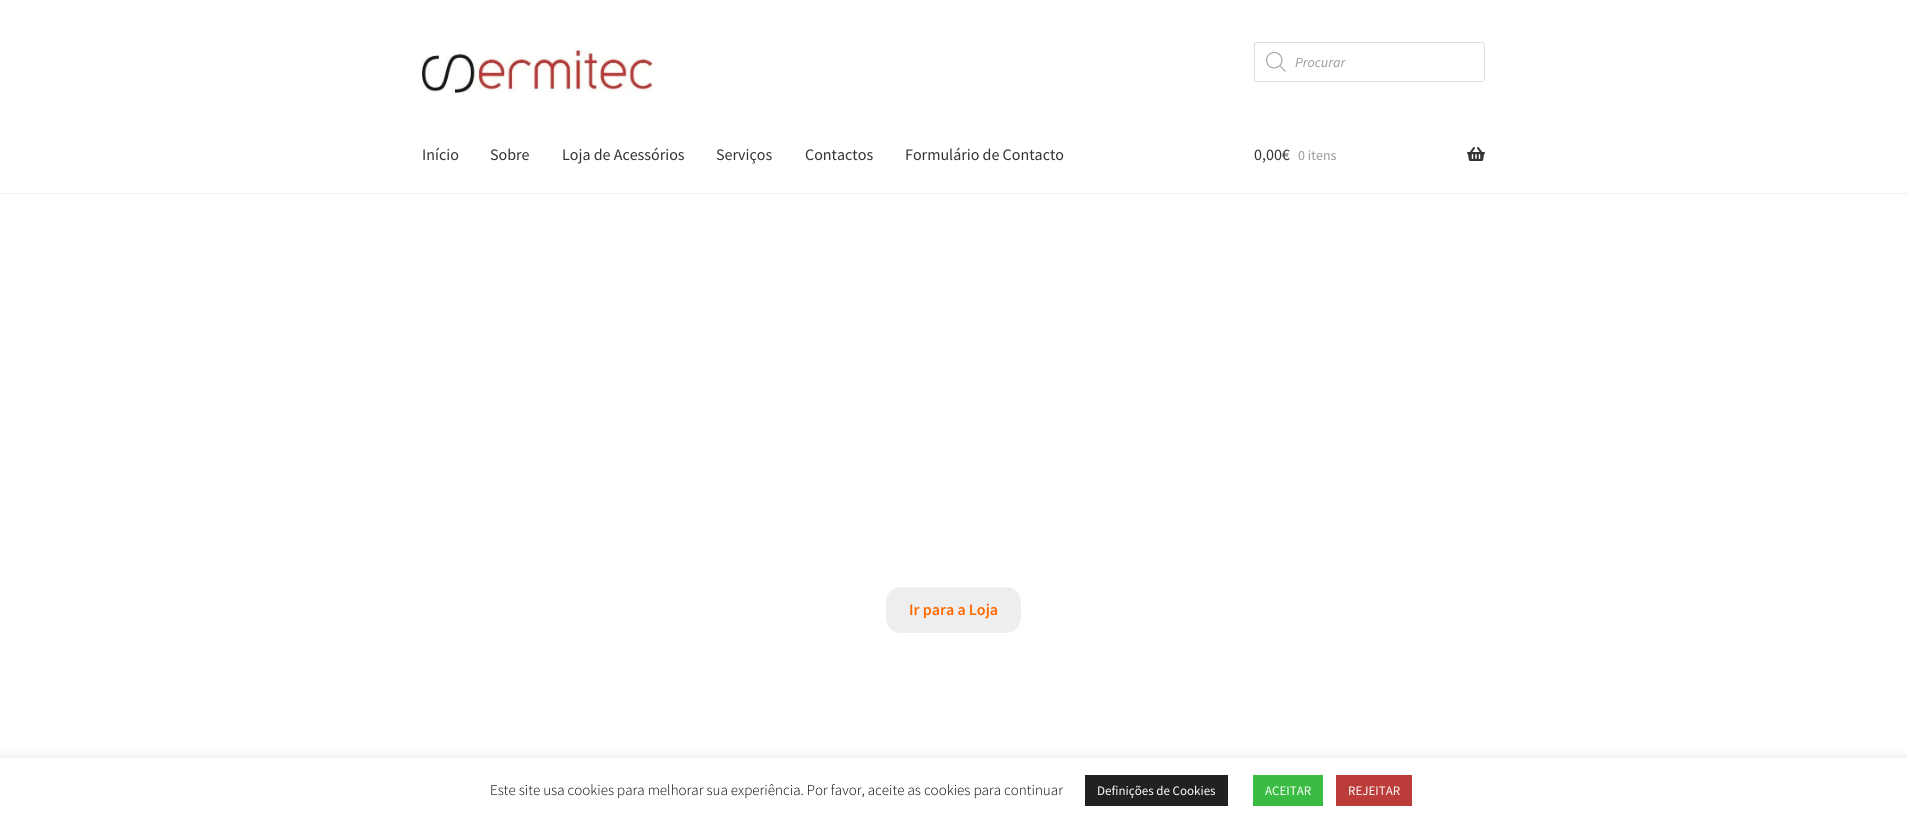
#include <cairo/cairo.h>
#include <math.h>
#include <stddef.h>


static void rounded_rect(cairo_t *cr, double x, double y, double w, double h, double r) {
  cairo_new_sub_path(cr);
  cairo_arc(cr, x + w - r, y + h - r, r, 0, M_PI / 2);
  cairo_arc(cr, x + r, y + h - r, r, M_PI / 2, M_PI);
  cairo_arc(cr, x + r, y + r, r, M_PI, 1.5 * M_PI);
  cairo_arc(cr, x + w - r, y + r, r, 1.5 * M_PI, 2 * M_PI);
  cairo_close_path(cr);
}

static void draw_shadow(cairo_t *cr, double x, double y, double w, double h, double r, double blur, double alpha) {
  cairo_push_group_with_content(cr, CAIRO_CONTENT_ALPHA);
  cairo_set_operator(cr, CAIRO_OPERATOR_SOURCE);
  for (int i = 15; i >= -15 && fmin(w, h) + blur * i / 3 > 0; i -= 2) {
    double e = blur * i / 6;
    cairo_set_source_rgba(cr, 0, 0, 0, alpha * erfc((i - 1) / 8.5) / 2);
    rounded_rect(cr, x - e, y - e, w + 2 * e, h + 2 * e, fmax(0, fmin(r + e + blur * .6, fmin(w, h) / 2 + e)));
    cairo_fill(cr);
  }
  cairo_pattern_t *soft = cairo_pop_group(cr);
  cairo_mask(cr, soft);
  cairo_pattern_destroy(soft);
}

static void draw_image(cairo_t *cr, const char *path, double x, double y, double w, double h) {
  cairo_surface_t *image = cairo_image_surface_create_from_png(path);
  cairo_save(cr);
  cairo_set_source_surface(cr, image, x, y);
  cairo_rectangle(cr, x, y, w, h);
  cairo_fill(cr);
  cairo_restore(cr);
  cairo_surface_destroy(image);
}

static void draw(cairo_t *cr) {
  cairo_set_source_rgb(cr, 1, 1, 1);
  cairo_paint(cr);
  cairo_set_source_rgb(cr, 240 / 255.0, 240 / 255.0, 240 / 255.0);
  cairo_rectangle(cr, 0, 193, 1907, 1);
  cairo_fill(cr);
  draw_image(cr, "images/1.png", 422, 49, 230, 44);
  rounded_rect(cr, 1254.5, 42.5, 230, 39, 2.5);
  cairo_set_source_rgb(cr, 221 / 255.0, 221 / 255.0, 221 / 255.0);
  cairo_set_line_width(cr, 1);
  cairo_stroke(cr);
  draw_image(cr, "images/2.png", 1266, 52, 20, 20);
  draw_image(cr, "images/3.png", 1467, 147, 18, 14);
  cairo_set_source_rgb(cr, 238 / 255.0, 238 / 255.0, 238 / 255.0);
  rounded_rect(cr, 886, 587, 135, 46, 15);
  cairo_fill(cr);
  cairo_set_source_rgb(cr, 172 / 255.0, 171 / 255.0, 171 / 255.0);
  draw_shadow(cr, 0, 757, 1907, 65, 0, 5, 0.3);
  cairo_set_source_rgb(cr, 1, 1, 1);
  cairo_rectangle(cr, 0, 758, 1907, 65);
  cairo_fill(cr);
  cairo_set_source_rgb(cr, 33 / 255.0, 33 / 255.0, 31 / 255.0);
  cairo_rectangle(cr, 1085, 775, 143, 31);
  cairo_fill(cr);
  cairo_set_source_rgb(cr, 58 / 255.0, 188 / 255.0, 67 / 255.0);
  cairo_rectangle(cr, 1253, 775, 70, 31);
  cairo_fill(cr);
  cairo_set_source_rgb(cr, 188 / 255.0, 60 / 255.0, 58 / 255.0);
  cairo_rectangle(cr, 1336, 775, 76, 31);
  cairo_fill(cr);
  cairo_select_font_face(cr, "Source Sans Pro", CAIRO_FONT_SLANT_ITALIC, CAIRO_FONT_WEIGHT_NORMAL);
  cairo_set_font_size(cr, 14);
  cairo_set_source_rgb(cr, 153 / 255.0, 153 / 255.0, 153 / 255.0);
  cairo_move_to(cr, 1295, 67);
  cairo_show_text(cr, "Procurar");
  cairo_select_font_face(cr, "Source Sans Pro", CAIRO_FONT_SLANT_NORMAL, CAIRO_FONT_WEIGHT_NORMAL);
  cairo_set_font_size(cr, 16);
  cairo_set_source_rgb(cr, 51 / 255.0, 51 / 255.0, 51 / 255.0);
  cairo_move_to(cr, 422, 160);
  cairo_show_text(cr, "Início");
  cairo_move_to(cr, 490, 160);
  cairo_show_text(cr, "Sobre");
  cairo_move_to(cr, 562, 160);
  cairo_show_text(cr, "Loja de Acessórios");
  cairo_move_to(cr, 716, 160);
  cairo_show_text(cr, "Serviços");
  cairo_move_to(cr, 805, 160);
  cairo_show_text(cr, "Contactos");
  cairo_move_to(cr, 905, 160);
  cairo_show_text(cr, "Formulário de Contacto");
  cairo_move_to(cr, 1254, 160);
  cairo_show_text(cr, "0,00€");
  cairo_set_font_size(cr, 14);
  cairo_set_source_rgb(cr, 153 / 255.0, 153 / 255.0, 153 / 255.0);
  cairo_move_to(cr, 1298, 160);
  cairo_show_text(cr, "0 itens");
  cairo_select_font_face(cr, "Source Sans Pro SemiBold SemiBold", CAIRO_FONT_SLANT_NORMAL, CAIRO_FONT_WEIGHT_NORMAL);
  cairo_set_font_size(cr, 16);
  cairo_set_source_rgb(cr, 1, 105 / 255.0, 0);
  cairo_move_to(cr, 909, 615);
  cairo_show_text(cr, "Ir para a Loja");
  cairo_select_font_face(cr, "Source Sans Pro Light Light", CAIRO_FONT_SLANT_NORMAL, CAIRO_FONT_WEIGHT_NORMAL);
  cairo_set_font_size(cr, 15);
  cairo_set_source_rgb(cr, 0, 0, 0);
  cairo_move_to(cr, 490, 795);
  cairo_show_text(cr, "Este site usa cookies para melhorar sua experiência. Por favor, aceite as cookies para continuar");
  cairo_select_font_face(cr, "Source Sans Pro", CAIRO_FONT_SLANT_NORMAL, CAIRO_FONT_WEIGHT_NORMAL);
  cairo_set_font_size(cr, 13);
  cairo_set_source_rgb(cr, 1, 1, 1);
  cairo_move_to(cr, 1097, 795);
  cairo_show_text(cr, "Definições de Cookies");
  cairo_move_to(cr, 1265, 795);
  cairo_show_text(cr, "ACEITAR");
  cairo_move_to(cr, 1348, 795);
  cairo_show_text(cr, "REJEITAR");
}

int main(void) {
  cairo_surface_t *surface = cairo_image_surface_create(CAIRO_FORMAT_RGB24, 1907, 823);
  cairo_t *cr = cairo_create(surface);
  cairo_font_options_t *options = cairo_font_options_create();
  cairo_font_options_set_hint_metrics(options, CAIRO_HINT_METRICS_OFF);
  cairo_font_options_set_hint_style(options, CAIRO_HINT_STYLE_NONE);
  cairo_set_font_options(cr, options);
  cairo_set_miter_limit(cr, 4);
  draw(cr);
  cairo_surface_write_to_png(surface, "out.png");
  cairo_font_options_destroy(options);
  cairo_destroy(cr);
  cairo_surface_destroy(surface);
  return 0;
}
